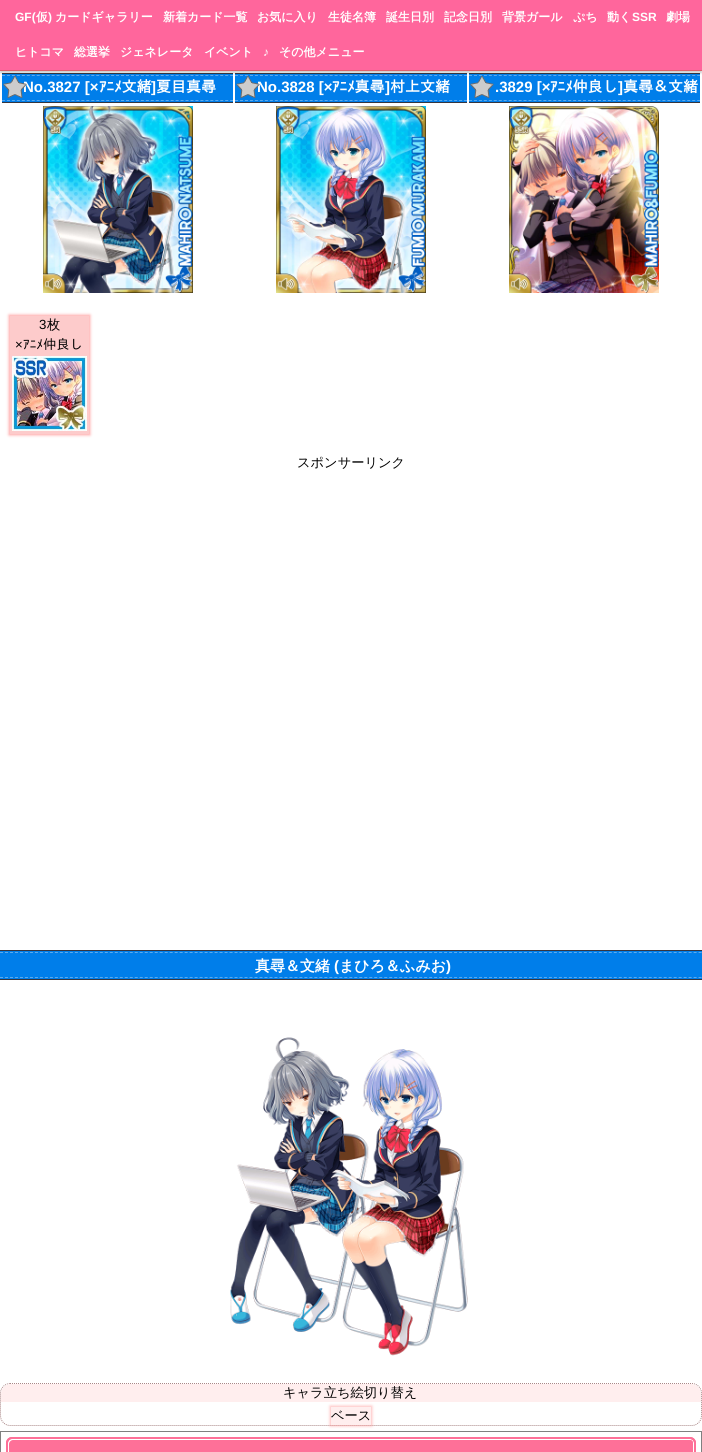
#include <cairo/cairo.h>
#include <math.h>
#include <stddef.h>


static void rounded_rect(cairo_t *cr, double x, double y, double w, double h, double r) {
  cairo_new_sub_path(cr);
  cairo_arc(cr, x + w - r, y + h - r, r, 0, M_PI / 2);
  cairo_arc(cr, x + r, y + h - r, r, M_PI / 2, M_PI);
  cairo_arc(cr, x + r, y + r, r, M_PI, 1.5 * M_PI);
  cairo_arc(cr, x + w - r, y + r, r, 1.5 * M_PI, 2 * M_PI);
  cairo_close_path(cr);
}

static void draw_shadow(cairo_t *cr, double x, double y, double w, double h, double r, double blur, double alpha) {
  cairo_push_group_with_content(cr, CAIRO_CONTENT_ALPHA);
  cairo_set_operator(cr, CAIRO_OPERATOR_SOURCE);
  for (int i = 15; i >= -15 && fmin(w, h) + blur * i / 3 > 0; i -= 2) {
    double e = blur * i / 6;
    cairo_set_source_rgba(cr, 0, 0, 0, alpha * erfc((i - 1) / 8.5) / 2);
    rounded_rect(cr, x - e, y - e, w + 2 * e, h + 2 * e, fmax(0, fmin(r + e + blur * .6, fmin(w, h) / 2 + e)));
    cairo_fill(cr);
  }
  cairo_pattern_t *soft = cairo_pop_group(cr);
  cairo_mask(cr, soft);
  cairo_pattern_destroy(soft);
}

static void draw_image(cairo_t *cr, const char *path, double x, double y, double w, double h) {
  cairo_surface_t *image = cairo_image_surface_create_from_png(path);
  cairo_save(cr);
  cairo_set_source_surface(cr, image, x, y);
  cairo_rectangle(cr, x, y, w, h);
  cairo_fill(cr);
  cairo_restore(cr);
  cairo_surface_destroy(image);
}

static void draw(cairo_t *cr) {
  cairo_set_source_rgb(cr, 1, 1, 1);
  cairo_paint(cr);
  cairo_set_source_rgb(cr, 0, 0, 0);
  draw_shadow(cr, 0, 2, 702, 71, 0, 1, 0.2);
  cairo_set_source_rgb(cr, 1, 102 / 255.0, 156 / 255.0);
  cairo_rectangle(cr, 0, 0, 702, 70);
  cairo_fill(cr);
  cairo_set_source_rgb(cr, 221 / 255.0, 97 / 255.0, 109 / 255.0);
  cairo_rectangle(cr, 0, 70, 702, 1);
  cairo_fill(cr);
  cairo_set_source_rgb(cr, 0, 126 / 255.0, 234 / 255.0);
  cairo_rectangle(cr, 2, 74, 231, 28);
  cairo_fill(cr);
  cairo_set_source_rgb(cr, 54 / 255.0, 53 / 255.0, 62 / 255.0);
  cairo_rectangle(cr, 2, 73, 231, 1);
  cairo_fill(cr);
  cairo_rectangle(cr, 2, 102, 231, 1);
  cairo_fill(cr);
  cairo_new_path(cr);
  cairo_move_to(cr, 2, 75.5);
  cairo_line_to(cr, 233, 75.5);
  cairo_set_source_rgb(cr, 92 / 255.0, 169 / 255.0, 236 / 255.0);
  cairo_set_line_width(cr, 1);
  cairo_set_dash(cr, (double[]){3, 1.96}, 2, 0);
  cairo_stroke(cr);
  cairo_new_path(cr);
  cairo_move_to(cr, 2, 100.5);
  cairo_line_to(cr, 233, 100.5);
  cairo_stroke(cr);
  cairo_set_source_rgb(cr, 0, 126 / 255.0, 234 / 255.0);
  cairo_rectangle(cr, 235, 74, 232, 28);
  cairo_fill(cr);
  cairo_set_source_rgb(cr, 54 / 255.0, 53 / 255.0, 62 / 255.0);
  cairo_rectangle(cr, 235, 73, 232, 1);
  cairo_fill(cr);
  cairo_rectangle(cr, 235, 102, 232, 1);
  cairo_fill(cr);
  cairo_new_path(cr);
  cairo_move_to(cr, 235, 75.5);
  cairo_line_to(cr, 467, 75.5);
  cairo_set_source_rgb(cr, 92 / 255.0, 169 / 255.0, 236 / 255.0);
  cairo_set_dash(cr, (double[]){3, 1.98}, 2, 0);
  cairo_stroke(cr);
  cairo_new_path(cr);
  cairo_move_to(cr, 235, 100.5);
  cairo_line_to(cr, 467, 100.5);
  cairo_stroke(cr);
  cairo_set_source_rgb(cr, 0, 126 / 255.0, 234 / 255.0);
  cairo_rectangle(cr, 469, 74, 231, 28);
  cairo_fill(cr);
  cairo_set_source_rgb(cr, 54 / 255.0, 53 / 255.0, 62 / 255.0);
  cairo_rectangle(cr, 469, 73, 231, 1);
  cairo_fill(cr);
  cairo_rectangle(cr, 469, 102, 231, 1);
  cairo_fill(cr);
  cairo_new_path(cr);
  cairo_move_to(cr, 469, 75.5);
  cairo_line_to(cr, 700, 75.5);
  cairo_set_source_rgb(cr, 92 / 255.0, 169 / 255.0, 236 / 255.0);
  cairo_set_dash(cr, (double[]){3, 1.96}, 2, 0);
  cairo_stroke(cr);
  cairo_new_path(cr);
  cairo_move_to(cr, 469, 100.5);
  cairo_line_to(cr, 700, 100.5);
  cairo_stroke(cr);
  draw_image(cr, "images/3.png", 470, 75, 24, 23);
  draw_image(cr, "images/4.png", 43, 106, 150, 187);
  draw_image(cr, "images/5.png", 276, 106, 150, 187);
  draw_image(cr, "images/6.png", 509, 106, 150, 187);
  cairo_set_source_rgb(cr, 1, 150 / 255.0, 150 / 255.0);
  draw_shadow(cr, 9, 315, 81, 120, 0, 1.5, 0.9);
  cairo_set_source_rgb(cr, 253 / 255.0, 203 / 255.0, 203 / 255.0);
  cairo_rectangle(cr, 10, 316, 79, 118);
  cairo_fill(cr);
  draw_image(cr, "images/7.png", 12, 356, 75, 75);
  cairo_set_source_rgb(cr, 0, 126 / 255.0, 234 / 255.0);
  cairo_rectangle(cr, 0, 951, 702, 28);
  cairo_fill(cr);
  cairo_set_source_rgb(cr, 54 / 255.0, 53 / 255.0, 62 / 255.0);
  cairo_rectangle(cr, 0, 950, 702, 1);
  cairo_fill(cr);
  cairo_rectangle(cr, 0, 979, 702, 1);
  cairo_fill(cr);
  cairo_new_path(cr);
  cairo_move_to(cr, 0, 952.5);
  cairo_line_to(cr, 702, 952.5);
  cairo_set_source_rgb(cr, 92 / 255.0, 169 / 255.0, 236 / 255.0);
  cairo_set_dash(cr, (double[]){3, 1.99}, 2, 0);
  cairo_stroke(cr);
  cairo_new_path(cr);
  cairo_move_to(cr, 0, 977.5);
  cairo_line_to(cr, 702, 977.5);
  cairo_stroke(cr);
  draw_image(cr, "images/8.png", 230, 1037, 238, 319);
  cairo_new_path(cr);
  cairo_move_to(cr, 10, 1383.5);
  cairo_line_to(cr, 692, 1383.5);
  cairo_curve_to(cr, 697, 1383.5, 701.5, 1388, 701.5, 1393);
  cairo_line_to(cr, 701.5, 1416);
  cairo_curve_to(cr, 701.5, 1421, 697, 1425.5, 692, 1425.5);
  cairo_line_to(cr, 10, 1425.5);
  cairo_curve_to(cr, 5, 1425.5, 0.5, 1421, 0.5, 1416);
  cairo_line_to(cr, 0.5, 1393);
  cairo_curve_to(cr, 0.5, 1388, 5, 1383.5, 10, 1383.5);
  cairo_close_path(cr);
  cairo_set_source_rgb(cr, 170 / 255.0, 136 / 255.0, 136 / 255.0);
  cairo_set_dash(cr, (double[]){1, 1}, 2, 0);
  cairo_stroke(cr);
  cairo_set_source_rgb(cr, 1, 238 / 255.0, 238 / 255.0);
  cairo_new_path(cr);
  cairo_move_to(cr, 11, 1384);
  cairo_line_to(cr, 691, 1384);
  cairo_curve_to(cr, 696.5, 1384, 701, 1388.5, 701, 1394);
  cairo_line_to(cr, 701, 1402);
  cairo_line_to(cr, 1, 1402);
  cairo_line_to(cr, 1, 1394);
  cairo_curve_to(cr, 1, 1388.5, 5.5, 1384, 11, 1384);
  cairo_close_path(cr);
  cairo_fill(cr);
  cairo_set_source_rgb(cr, 128 / 255.0, 128 / 255.0, 128 / 255.0);
  cairo_rectangle(cr, 0, 1431, 702, 1);
  cairo_fill(cr);
  cairo_set_source_rgb(cr, 1, 150 / 255.0, 150 / 255.0);
  draw_shadow(cr, 330, 1406, 42, 20, 0, 1.5, 0.64);
  cairo_set_source_rgb(cr, 1, 238 / 255.0, 238 / 255.0);
  cairo_rectangle(cr, 331, 1407, 40, 18);
  cairo_fill(cr);
  cairo_set_source_rgb(cr, 128 / 255.0, 128 / 255.0, 128 / 255.0);
  cairo_rectangle(cr, 701, 1431, 1, 21);
  cairo_fill(cr);
  cairo_rectangle(cr, 0, 1431, 1, 21);
  cairo_fill(cr);
  cairo_set_source_rgb(cr, 254 / 255.0, 112 / 255.0, 152 / 255.0);
  rounded_rect(cr, 6, 1437, 690, 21, 6);
  cairo_fill(cr);
  cairo_set_source_rgb(cr, 1, 1, 1);
  cairo_new_path(cr);
  cairo_move_to(cr, 9, 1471);
  cairo_curve_to(cr, 9, 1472, 11, 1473, 12, 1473);
  cairo_line_to(cr, 690, 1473);
  cairo_curve_to(cr, 692, 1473, 694, 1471, 694, 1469);
  cairo_line_to(cr, 694, 1443);
  cairo_curve_to(cr, 694, 1442, 693, 1440, 692, 1440);
  cairo_line_to(cr, 693, 1442);
  cairo_line_to(cr, 693, 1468);
  cairo_curve_to(cr, 693, 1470, 691, 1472, 689, 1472);
  cairo_line_to(cr, 11, 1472);
  cairo_close_path(cr);
  cairo_fill(cr);
  cairo_new_path(cr);
  cairo_move_to(cr, 13, 1440);
  cairo_line_to(cr, 691, 1440);
  cairo_line_to(cr, 693, 1441);
  cairo_curve_to(cr, 693, 1440, 691, 1439, 690, 1439);
  cairo_line_to(cr, 12, 1439);
  cairo_curve_to(cr, 10, 1439, 8, 1441, 8, 1443);
  cairo_line_to(cr, 8, 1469);
  cairo_curve_to(cr, 8, 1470, 9, 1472, 10, 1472);
  cairo_line_to(cr, 9, 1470);
  cairo_line_to(cr, 9, 1444);
  cairo_curve_to(cr, 9, 1442, 11, 1440, 13, 1440);
  cairo_close_path(cr);
  cairo_fill(cr);
  rounded_rect(cr, 7, 1438, 688, 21, 5);
  cairo_set_source_rgb(cr, 254 / 255.0, 112 / 255.0, 152 / 255.0);
  cairo_set_line_width(cr, 2);
  cairo_set_dash(cr, NULL, 0, 0);
  cairo_stroke(cr);
  cairo_select_font_face(cr, "Liberation Sans", CAIRO_FONT_SLANT_NORMAL, CAIRO_FONT_WEIGHT_BOLD);
  cairo_set_font_size(cr, 12);
  cairo_set_source_rgb(cr, 1, 1, 1);
  cairo_move_to(cr, 15, 21);
  cairo_show_text(cr, "GF(");
  cairo_select_font_face(cr, "WenQuanYi Zen Hei", CAIRO_FONT_SLANT_NORMAL, CAIRO_FONT_WEIGHT_BOLD);
  cairo_move_to(cr, 36, 21);
  cairo_show_text(cr, "仮");
  cairo_select_font_face(cr, "Liberation Sans", CAIRO_FONT_SLANT_NORMAL, CAIRO_FONT_WEIGHT_BOLD);
  cairo_move_to(cr, 48, 21);
  cairo_show_text(cr, ")");
  cairo_select_font_face(cr, "WenQuanYi Zen Hei", CAIRO_FONT_SLANT_NORMAL, CAIRO_FONT_WEIGHT_BOLD);
  cairo_move_to(cr, 55, 21);
  cairo_show_text(cr, "カードギャラリー");
  cairo_move_to(cr, 163, 21);
  cairo_show_text(cr, "新着カード一覧");
  cairo_move_to(cr, 257, 21);
  cairo_show_text(cr, "お気に入り");
  cairo_move_to(cr, 328, 21);
  cairo_show_text(cr, "生徒名簿");
  cairo_move_to(cr, 386, 21);
  cairo_show_text(cr, "誕生日別");
  cairo_move_to(cr, 444, 21);
  cairo_show_text(cr, "記念日別");
  cairo_move_to(cr, 502, 21);
  cairo_show_text(cr, "背景ガール");
  cairo_move_to(cr, 573, 21);
  cairo_show_text(cr, "ぷち");
  cairo_move_to(cr, 607, 21);
  cairo_show_text(cr, "動く");
  cairo_select_font_face(cr, "Liberation Sans", CAIRO_FONT_SLANT_NORMAL, CAIRO_FONT_WEIGHT_BOLD);
  cairo_move_to(cr, 632, 21);
  cairo_show_text(cr, "SSR");
  cairo_select_font_face(cr, "WenQuanYi Zen Hei", CAIRO_FONT_SLANT_NORMAL, CAIRO_FONT_WEIGHT_BOLD);
  cairo_move_to(cr, 666, 21);
  cairo_show_text(cr, "劇場");
  cairo_move_to(cr, 15, 56);
  cairo_show_text(cr, "ヒトコマ");
  cairo_move_to(cr, 74, 56);
  cairo_show_text(cr, "総選挙");
  cairo_move_to(cr, 120, 56);
  cairo_show_text(cr, "ジェネレータ");
  cairo_move_to(cr, 204, 56);
  cairo_show_text(cr, "イベント");
  cairo_select_font_face(cr, "Liberation Sans", CAIRO_FONT_SLANT_NORMAL, CAIRO_FONT_WEIGHT_BOLD);
  cairo_move_to(cr, 263, 56);
  cairo_show_text(cr, "♪");
  cairo_select_font_face(cr, "WenQuanYi Zen Hei", CAIRO_FONT_SLANT_NORMAL, CAIRO_FONT_WEIGHT_BOLD);
  cairo_move_to(cr, 279, 56);
  cairo_show_text(cr, "その他メニュー");
  cairo_select_font_face(cr, "Liberation Sans", CAIRO_FONT_SLANT_NORMAL, CAIRO_FONT_WEIGHT_BOLD);
  cairo_set_font_size(cr, 15);
  cairo_move_to(cr, 23, 92);
  cairo_show_text(cr, "No.3827 [×");
  draw_image(cr, "images/1.png", 3, 75, 24, 23);
  cairo_select_font_face(cr, "IPAGothic", CAIRO_FONT_SLANT_NORMAL, CAIRO_FONT_WEIGHT_BOLD);
  cairo_move_to(cr, 99, 92);
  cairo_show_text(cr, "ｱﾆﾒ文緒");
  cairo_select_font_face(cr, "Liberation Sans", CAIRO_FONT_SLANT_NORMAL, CAIRO_FONT_WEIGHT_BOLD);
  cairo_move_to(cr, 151, 92);
  cairo_show_text(cr, "]");
  cairo_select_font_face(cr, "IPAGothic", CAIRO_FONT_SLANT_NORMAL, CAIRO_FONT_WEIGHT_BOLD);
  cairo_move_to(cr, 156, 92);
  cairo_show_text(cr, "夏目真尋");
  cairo_select_font_face(cr, "Liberation Sans", CAIRO_FONT_SLANT_NORMAL, CAIRO_FONT_WEIGHT_BOLD);
  cairo_move_to(cr, 257, 92);
  cairo_show_text(cr, "No.3828 [×");
  draw_image(cr, "images/2.png", 236, 75, 24, 23);
  cairo_select_font_face(cr, "IPAGothic", CAIRO_FONT_SLANT_NORMAL, CAIRO_FONT_WEIGHT_BOLD);
  cairo_move_to(cr, 332, 92);
  cairo_show_text(cr, "ｱﾆﾒ真尋");
  cairo_select_font_face(cr, "Liberation Sans", CAIRO_FONT_SLANT_NORMAL, CAIRO_FONT_WEIGHT_BOLD);
  cairo_move_to(cr, 385, 92);
  cairo_show_text(cr, "]");
  cairo_select_font_face(cr, "IPAGothic", CAIRO_FONT_SLANT_NORMAL, CAIRO_FONT_WEIGHT_BOLD);
  cairo_move_to(cr, 390, 92);
  cairo_show_text(cr, "村上文緒");
  cairo_select_font_face(cr, "Liberation Sans", CAIRO_FONT_SLANT_NORMAL, CAIRO_FONT_WEIGHT_BOLD);
  cairo_move_to(cr, 495, 92);
  cairo_show_text(cr, ".3829 [×");
  cairo_select_font_face(cr, "IPAGothic", CAIRO_FONT_SLANT_NORMAL, CAIRO_FONT_WEIGHT_BOLD);
  cairo_move_to(cr, 550, 92);
  cairo_show_text(cr, "ｱﾆﾒ仲良し");
  cairo_select_font_face(cr, "Liberation Sans", CAIRO_FONT_SLANT_NORMAL, CAIRO_FONT_WEIGHT_BOLD);
  cairo_move_to(cr, 618, 92);
  cairo_show_text(cr, "]");
  cairo_select_font_face(cr, "IPAGothic", CAIRO_FONT_SLANT_NORMAL, CAIRO_FONT_WEIGHT_BOLD);
  cairo_move_to(cr, 623, 92);
  cairo_show_text(cr, "真尋＆文緒");
  cairo_select_font_face(cr, "Liberation Sans", CAIRO_FONT_SLANT_NORMAL, CAIRO_FONT_WEIGHT_NORMAL);
  cairo_set_font_size(cr, 13.25);
  cairo_set_source_rgb(cr, 0, 0, 0);
  cairo_move_to(cr, 39, 329);
  cairo_show_text(cr, "3");
  cairo_select_font_face(cr, "WenQuanYi Zen Hei Medium", CAIRO_FONT_SLANT_NORMAL, CAIRO_FONT_WEIGHT_NORMAL);
  cairo_move_to(cr, 47, 329);
  cairo_show_text(cr, "枚");
  cairo_select_font_face(cr, "Liberation Sans", CAIRO_FONT_SLANT_NORMAL, CAIRO_FONT_WEIGHT_NORMAL);
  cairo_move_to(cr, 15, 349);
  cairo_show_text(cr, "×");
  cairo_select_font_face(cr, "IPAGothic", CAIRO_FONT_SLANT_NORMAL, CAIRO_FONT_WEIGHT_NORMAL);
  cairo_move_to(cr, 23, 349);
  cairo_show_text(cr, "ｱﾆﾒ仲良し");
  cairo_select_font_face(cr, "WenQuanYi Zen Hei Medium", CAIRO_FONT_SLANT_NORMAL, CAIRO_FONT_WEIGHT_NORMAL);
  cairo_move_to(cr, 297, 467);
  cairo_show_text(cr, "スポンサーリンク");
  cairo_select_font_face(cr, "WenQuanYi Zen Hei", CAIRO_FONT_SLANT_NORMAL, CAIRO_FONT_WEIGHT_BOLD);
  cairo_set_font_size(cr, 15);
  cairo_set_source_rgb(cr, 1, 1, 1);
  cairo_move_to(cr, 255, 971);
  cairo_show_text(cr, "真尋＆文緒");
  cairo_select_font_face(cr, "Liberation Sans", CAIRO_FONT_SLANT_NORMAL, CAIRO_FONT_WEIGHT_BOLD);
  cairo_move_to(cr, 334, 971);
  cairo_show_text(cr, "(");
  cairo_select_font_face(cr, "WenQuanYi Zen Hei", CAIRO_FONT_SLANT_NORMAL, CAIRO_FONT_WEIGHT_BOLD);
  cairo_move_to(cr, 339, 971);
  cairo_show_text(cr, "まひろ＆ふみお");
  cairo_select_font_face(cr, "Liberation Sans", CAIRO_FONT_SLANT_NORMAL, CAIRO_FONT_WEIGHT_BOLD);
  cairo_move_to(cr, 446, 971);
  cairo_show_text(cr, ")");
  cairo_select_font_face(cr, "WenQuanYi Zen Hei Medium", CAIRO_FONT_SLANT_NORMAL, CAIRO_FONT_WEIGHT_NORMAL);
  cairo_set_font_size(cr, 13.25);
  cairo_set_source_rgb(cr, 0, 0, 0);
  cairo_move_to(cr, 283, 1397);
  cairo_show_text(cr, "キャラ立ち絵切り替え");
  cairo_move_to(cr, 331, 1420);
  cairo_show_text(cr, "ベース");
}

int main(void) {
  cairo_surface_t *surface = cairo_image_surface_create(CAIRO_FORMAT_RGB24, 702, 1452);
  cairo_t *cr = cairo_create(surface);
  cairo_font_options_t *options = cairo_font_options_create();
  cairo_font_options_set_hint_metrics(options, CAIRO_HINT_METRICS_OFF);
  cairo_font_options_set_hint_style(options, CAIRO_HINT_STYLE_NONE);
  cairo_set_font_options(cr, options);
  cairo_set_miter_limit(cr, 4);
  draw(cr);
  cairo_surface_write_to_png(surface, "out.png");
  cairo_font_options_destroy(options);
  cairo_destroy(cr);
  cairo_surface_destroy(surface);
  return 0;
}
